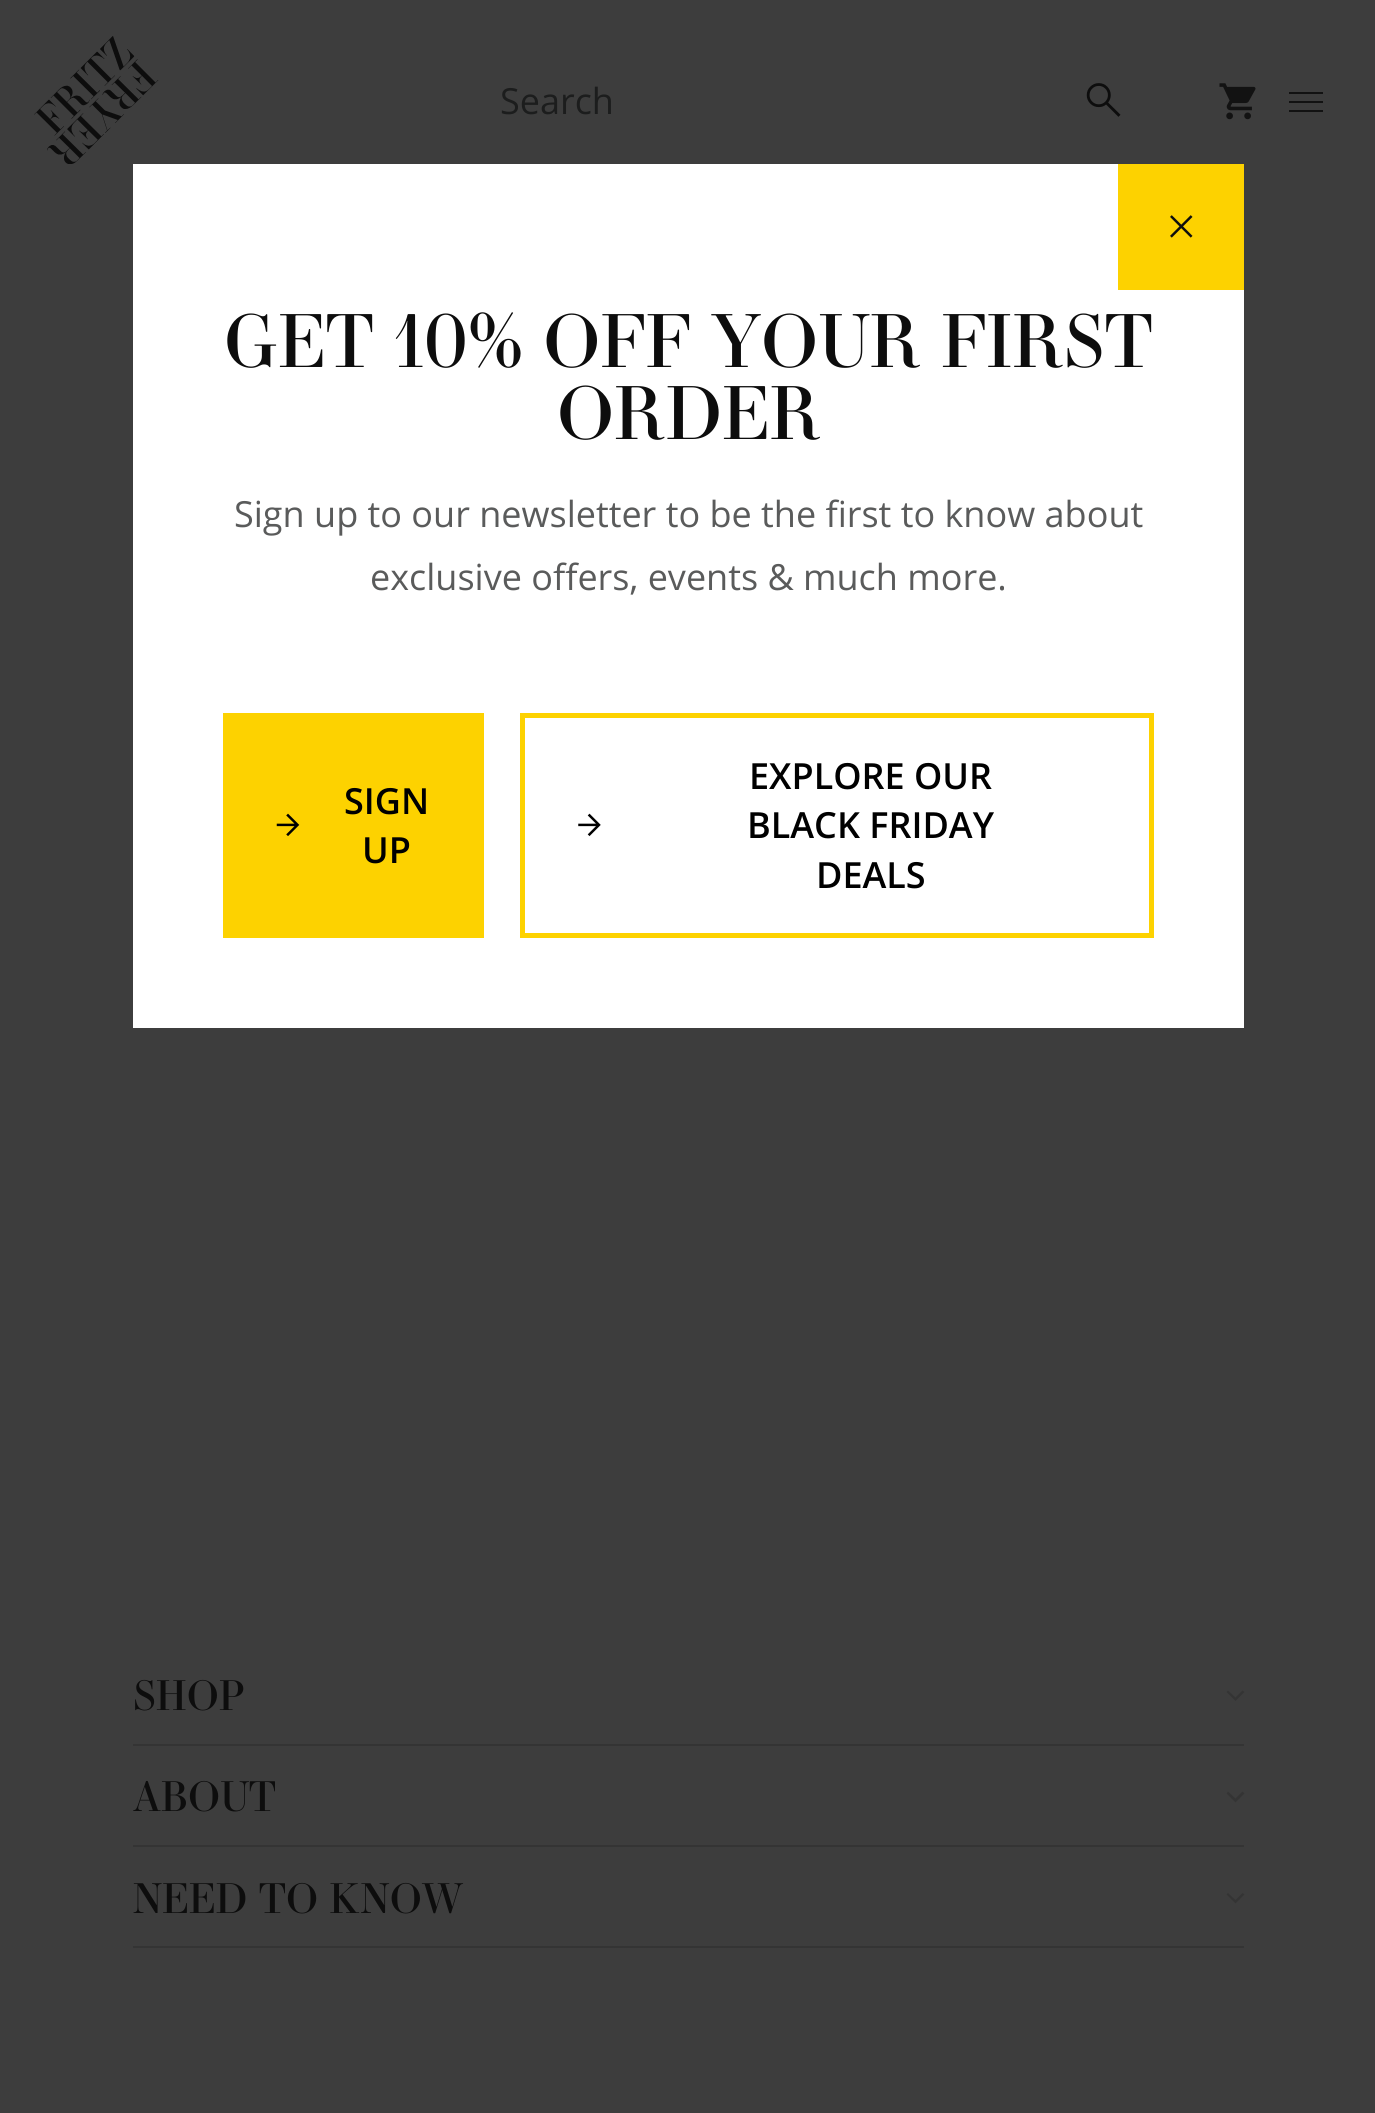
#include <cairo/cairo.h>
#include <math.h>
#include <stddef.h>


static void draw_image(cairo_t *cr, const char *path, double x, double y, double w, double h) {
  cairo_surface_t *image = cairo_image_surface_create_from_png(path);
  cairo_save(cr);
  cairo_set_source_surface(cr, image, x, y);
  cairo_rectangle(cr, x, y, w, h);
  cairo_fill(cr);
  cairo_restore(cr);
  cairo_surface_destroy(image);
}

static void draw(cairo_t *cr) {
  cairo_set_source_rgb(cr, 61 / 255.0, 61 / 255.0, 61 / 255.0);
  cairo_paint(cr);
  draw_image(cr, "images/1.png", 34, 36, 125, 128);
  draw_image(cr, "images/2.png", 1086, 83, 35, 34);
  draw_image(cr, "images/3.png", 1219, 83, 37, 37);
  cairo_set_source_rgb(cr, 18 / 255.0, 18 / 255.0, 18 / 255.0);
  cairo_rectangle(cr, 1289, 101, 34, 2);
  cairo_fill(cr);
  cairo_rectangle(cr, 1289, 92, 34, 2);
  cairo_fill(cr);
  cairo_rectangle(cr, 1289, 110, 34, 2);
  cairo_fill(cr);
  cairo_set_source_rgb(cr, 1, 1, 1);
  cairo_rectangle(cr, 133, 164, 1111, 864);
  cairo_fill(cr);
  cairo_set_source_rgb(cr, 253 / 255.0, 210 / 255.0, 0);
  cairo_rectangle(cr, 1118, 164, 126, 126);
  cairo_fill(cr);
  draw_image(cr, "images/4.png", 1170, 215, 23, 23);
  cairo_rectangle(cr, 223, 713, 261, 225);
  cairo_fill(cr);
  draw_image(cr, "images/5.png", 276, 813, 24, 23);
  cairo_rectangle(cr, 522.5, 715.5, 629, 220);
  cairo_set_line_width(cr, 5);
  cairo_stroke(cr);
  draw_image(cr, "images/6.png", 578, 813, 23, 24);
  cairo_set_source_rgb(cr, 52 / 255.0, 52 / 255.0, 52 / 255.0);
  cairo_rectangle(cr, 133, 1744, 1111, 2);
  cairo_fill(cr);
  cairo_new_path(cr);
  cairo_move_to(cr, 1235.5, 1697.5);
  cairo_line_to(cr, 1242.5, 1690.5);
  cairo_line_to(cr, 1244.5, 1692);
  cairo_line_to(cr, 1235.5, 1701);
  cairo_line_to(cr, 1226.5, 1692);
  cairo_line_to(cr, 1228, 1690.5);
  cairo_close_path(cr);
  cairo_fill(cr);
  cairo_rectangle(cr, 133, 1845, 1111, 2);
  cairo_fill(cr);
  cairo_new_path(cr);
  cairo_move_to(cr, 1235.5, 1798.5);
  cairo_line_to(cr, 1242.5, 1791.5);
  cairo_line_to(cr, 1244.5, 1793.5);
  cairo_line_to(cr, 1235.5, 1802.5);
  cairo_line_to(cr, 1226.5, 1793.5);
  cairo_line_to(cr, 1228, 1791.5);
  cairo_close_path(cr);
  cairo_fill(cr);
  cairo_rectangle(cr, 133, 1946, 1111, 2);
  cairo_fill(cr);
  cairo_new_path(cr);
  cairo_move_to(cr, 1235.5, 1900);
  cairo_line_to(cr, 1242.5, 1893);
  cairo_line_to(cr, 1244.5, 1894.5);
  cairo_line_to(cr, 1235.5, 1903.5);
  cairo_line_to(cr, 1226.5, 1894.5);
  cairo_line_to(cr, 1228, 1893);
  cairo_close_path(cr);
  cairo_fill(cr);
  cairo_select_font_face(cr, "Open Sans", CAIRO_FONT_SLANT_NORMAL, CAIRO_FONT_WEIGHT_NORMAL);
  cairo_set_font_size(cr, 36);
  cairo_set_source_rgb(cr, 28 / 255.0, 29 / 255.0, 29 / 255.0);
  cairo_move_to(cr, 500, 114);
  cairo_show_text(cr, "Search");
  cairo_select_font_face(cr, "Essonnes", CAIRO_FONT_SLANT_NORMAL, CAIRO_FONT_WEIGHT_NORMAL);
  cairo_set_font_size(cr, 72);
  cairo_set_source_rgb(cr, 13 / 255.0, 13 / 255.0, 13 / 255.0);
  cairo_move_to(cr, 224, 367);
  cairo_show_text(cr, "GET 10% OFF YOUR FIRST");
  cairo_move_to(cr, 557, 439);
  cairo_show_text(cr, "ORDER");
  cairo_select_font_face(cr, "Open Sans", CAIRO_FONT_SLANT_NORMAL, CAIRO_FONT_WEIGHT_NORMAL);
  cairo_set_font_size(cr, 36);
  cairo_set_source_rgb(cr, 90 / 255.0, 91 / 255.0, 91 / 255.0);
  cairo_move_to(cr, 234, 527);
  cairo_show_text(cr, "Sign up to our newsletter to be the first to know about");
  cairo_move_to(cr, 370, 590);
  cairo_show_text(cr, "exclusive offers, events & much more.");
  cairo_select_font_face(cr, "Open Sans SemiBold", CAIRO_FONT_SLANT_NORMAL, CAIRO_FONT_WEIGHT_NORMAL);
  cairo_set_source_rgb(cr, 0, 0, 0);
  cairo_move_to(cr, 344, 814);
  cairo_show_text(cr, "SIGN");
  cairo_move_to(cr, 362, 863);
  cairo_show_text(cr, "UP");
  cairo_move_to(cr, 749, 789);
  cairo_show_text(cr, "EXPLORE OUR");
  cairo_move_to(cr, 747, 838);
  cairo_show_text(cr, "BLACK FRIDAY");
  cairo_move_to(cr, 816, 888);
  cairo_show_text(cr, "DEALS");
  cairo_select_font_face(cr, "Essonnes", CAIRO_FONT_SLANT_NORMAL, CAIRO_FONT_WEIGHT_NORMAL);
  cairo_set_font_size(cr, 40.5);
  cairo_set_source_rgb(cr, 13 / 255.0, 13 / 255.0, 13 / 255.0);
  cairo_move_to(cr, 133, 1710);
  cairo_show_text(cr, "SHOP");
  cairo_move_to(cr, 133, 1811);
  cairo_show_text(cr, "ABOUT");
  cairo_move_to(cr, 133, 1913);
  cairo_show_text(cr, "NEED TO KNOW");
}

int main(void) {
  cairo_surface_t *surface = cairo_image_surface_create(CAIRO_FORMAT_RGB24, 1375, 2113);
  cairo_t *cr = cairo_create(surface);
  cairo_font_options_t *options = cairo_font_options_create();
  cairo_font_options_set_hint_metrics(options, CAIRO_HINT_METRICS_OFF);
  cairo_font_options_set_hint_style(options, CAIRO_HINT_STYLE_NONE);
  cairo_set_font_options(cr, options);
  cairo_set_miter_limit(cr, 4);
  draw(cr);
  cairo_surface_write_to_png(surface, "out.png");
  cairo_font_options_destroy(options);
  cairo_destroy(cr);
  cairo_surface_destroy(surface);
  return 0;
}
